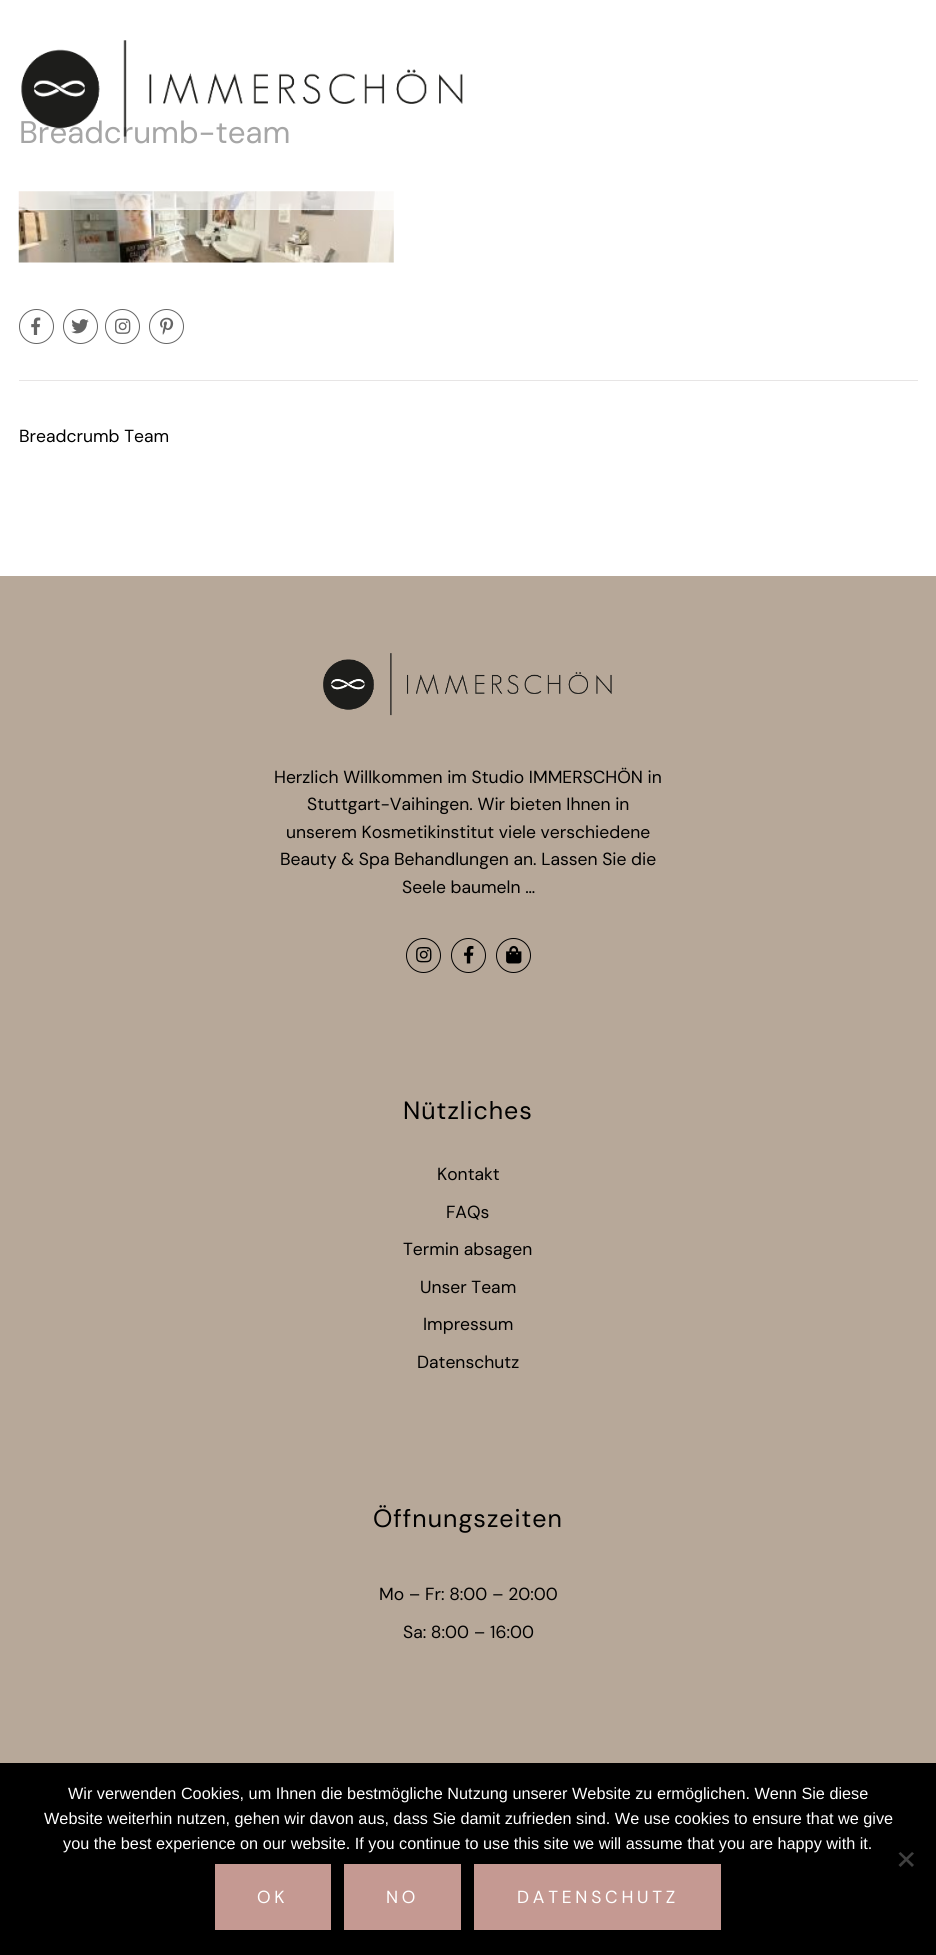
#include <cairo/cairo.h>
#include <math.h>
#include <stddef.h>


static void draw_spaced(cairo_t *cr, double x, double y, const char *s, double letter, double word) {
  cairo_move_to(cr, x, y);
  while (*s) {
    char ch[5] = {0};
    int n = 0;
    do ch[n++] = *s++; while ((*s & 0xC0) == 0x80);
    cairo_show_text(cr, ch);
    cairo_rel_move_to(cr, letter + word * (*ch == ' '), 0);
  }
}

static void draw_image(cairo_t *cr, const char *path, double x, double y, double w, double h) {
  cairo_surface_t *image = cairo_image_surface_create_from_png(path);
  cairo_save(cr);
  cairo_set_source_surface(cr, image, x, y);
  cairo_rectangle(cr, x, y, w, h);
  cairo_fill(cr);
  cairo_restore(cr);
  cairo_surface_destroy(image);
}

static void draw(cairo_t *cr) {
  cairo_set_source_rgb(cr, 1, 1, 1);
  cairo_paint(cr);
  draw_image(cr, "images/2.png", 18, 191, 376, 72);
  cairo_set_source_rgba(cr, 1, 1, 1, 0.2);
  cairo_rectangle(cr, 18, 209, 376, 1);
  cairo_fill(cr);
  cairo_arc(cr, 36.5, 326.5, 17, 0, 2 * M_PI);
  cairo_set_source_rgb(cr, 101 / 255.0, 101 / 255.0, 101 / 255.0);
  cairo_set_line_width(cr, 1);
  cairo_stroke(cr);
  draw_image(cr, "images/3.png", 31, 317, 10, 18);
  cairo_arc(cr, 80.5, 326.5, 17, 0, 2 * M_PI);
  cairo_stroke(cr);
  draw_image(cr, "images/4.png", 71, 319, 18, 15);
  cairo_arc(cr, 122.5, 326.5, 17, 0, 2 * M_PI);
  cairo_stroke(cr);
  draw_image(cr, "images/5.png", 115, 318, 16, 16);
  cairo_arc(cr, 166.5, 326.5, 17, 0, 2 * M_PI);
  cairo_stroke(cr);
  draw_image(cr, "images/6.png", 160, 317, 14, 18);
  cairo_set_source_rgb(cr, 231 / 255.0, 229 / 255.0, 229 / 255.0);
  cairo_rectangle(cr, 19, 380, 899, 1);
  cairo_fill(cr);
  cairo_set_source_rgb(cr, 183 / 255.0, 168 / 255.0, 153 / 255.0);
  cairo_rectangle(cr, 0, 576, 936, 1187);
  cairo_fill(cr);
  draw_image(cr, "images/7.png", 323, 653, 289, 63);
  cairo_arc(cr, 423.5, 955.5, 17, 0, 2 * M_PI);
  cairo_set_source_rgb(cr, 0, 0, 0);
  cairo_stroke(cr);
  draw_image(cr, "images/8.png", 416, 947, 16, 16);
  cairo_arc(cr, 468.5, 955.5, 17, 0, 2 * M_PI);
  cairo_stroke(cr);
  draw_image(cr, "images/9.png", 464, 945, 10, 19);
  cairo_arc(cr, 513.5, 955.5, 17, 0, 2 * M_PI);
  cairo_stroke(cr);
  draw_image(cr, "images/10.png", 506, 945, 16, 19);
  cairo_rectangle(cr, 0, 1763, 936, 192);
  cairo_fill(cr);
  cairo_set_source_rgb(cr, 64 / 255.0, 64 / 255.0, 64 / 255.0);
  cairo_new_path(cr);
  cairo_move_to(cr, 912, 1852);
  cairo_line_to(cr, 914, 1853.5);
  cairo_line_to(cr, 900.5, 1867);
  cairo_line_to(cr, 898.5, 1865);
  cairo_close_path(cr);
  cairo_fill(cr);
  cairo_new_path(cr);
  cairo_move_to(cr, 898.5, 1853.5);
  cairo_line_to(cr, 900.5, 1852);
  cairo_line_to(cr, 914, 1865);
  cairo_line_to(cr, 912, 1867);
  cairo_close_path(cr);
  cairo_fill(cr);
  cairo_set_source_rgb(cr, 197 / 255.0, 153 / 255.0, 146 / 255.0);
  cairo_rectangle(cr, 215, 1864, 116, 66);
  cairo_fill(cr);
  cairo_rectangle(cr, 344, 1864, 117, 66);
  cairo_fill(cr);
  cairo_rectangle(cr, 474, 1864, 247, 66);
  cairo_fill(cr);
  cairo_select_font_face(cr, "DM Sans", CAIRO_FONT_SLANT_NORMAL, CAIRO_FONT_WEIGHT_NORMAL);
  cairo_set_font_size(cr, 31.25);
  cairo_set_source_rgb(cr, 0, 0, 0);
  cairo_move_to(cr, 19, 143);
  cairo_show_text(cr, "Breadcrumb-team");
  cairo_set_source_rgba(cr, 1, 1, 1, 0.65);
  cairo_rectangle(cr, 18, 120, 376, 90);
  cairo_fill(cr);
  draw_image(cr, "images/1.png", 21, 40, 442, 97);
  cairo_set_source_rgba(cr, 1, 1, 1, 0.13);
  cairo_rectangle(cr, 19, 209, 316, 1);
  cairo_fill(cr);
  cairo_set_font_size(cr, 17.5);
  cairo_set_source_rgb(cr, 0, 0, 0);
  cairo_move_to(cr, 19, 442);
  cairo_show_text(cr, "Breadcrumb Team");
  cairo_move_to(cr, 274, 783);
  cairo_show_text(cr, "Herzlich Willkommen im Studio IMMERSCHÖN in");
  cairo_move_to(cr, 307, 810);
  cairo_show_text(cr, "Stuttgart-Vaihingen. Wir bieten Ihnen in");
  cairo_move_to(cr, 286, 838);
  cairo_show_text(cr, "unserem Kosmetikinstitut viele verschiedene");
  cairo_move_to(cr, 280, 865);
  cairo_show_text(cr, "Beauty & Spa Behandlungen an. Lassen Sie die");
  cairo_move_to(cr, 402, 893);
  cairo_show_text(cr, "Seele baumeln …");
  cairo_set_font_size(cr, 25);
  draw_spaced(cr, 403, 1119, "Nützliches", 1, 0);
  cairo_set_font_size(cr, 17.5);
  cairo_move_to(cr, 437, 1180);
  cairo_show_text(cr, "Kontakt");
  cairo_move_to(cr, 446, 1218);
  cairo_show_text(cr, "FAQs");
  cairo_move_to(cr, 403, 1255);
  cairo_show_text(cr, "Termin absagen");
  cairo_move_to(cr, 420, 1293);
  cairo_show_text(cr, "Unser Team");
  cairo_move_to(cr, 423, 1330);
  cairo_show_text(cr, "Impressum");
  cairo_move_to(cr, 417, 1368);
  cairo_show_text(cr, "Datenschutz");
  cairo_set_font_size(cr, 25);
  draw_spaced(cr, 373, 1527, "Öffnungszeiten", 1, 0);
  cairo_set_font_size(cr, 17.5);
  cairo_move_to(cr, 379, 1600);
  cairo_show_text(cr, "Mo – Fr: 8:00 – 20:00");
  cairo_move_to(cr, 403, 1638);
  cairo_show_text(cr, "Sa: 8:00 – 16:00");
  cairo_select_font_face(cr, "Liberation Sans", CAIRO_FONT_SLANT_NORMAL, CAIRO_FONT_WEIGHT_NORMAL);
  cairo_set_font_size(cr, 16.25);
  cairo_set_source_rgb(cr, 1, 1, 1);
  cairo_move_to(cr, 68, 1799);
  cairo_show_text(cr, "Wir verwenden Cookies, um Ihnen die bestmögliche Nutzung unserer Website zu ermöglichen. Wenn Sie diese");
  cairo_move_to(cr, 44, 1824);
  cairo_show_text(cr, "Website weiterhin nutzen, gehen wir davon aus, dass Sie damit zufrieden sind. We use cookies to ensure that we give");
  cairo_move_to(cr, 63, 1849);
  cairo_show_text(cr, "you the best experience on our website. If you continue to use this site we will assume that you are happy with it.");
  cairo_select_font_face(cr, "DM Sans", CAIRO_FONT_SLANT_NORMAL, CAIRO_FONT_WEIGHT_NORMAL);
  cairo_set_font_size(cr, 17.5);
  draw_spaced(cr, 257, 1903, "OK", 3.75, 0);
  draw_spaced(cr, 386, 1903, "NO", 3.75, 0);
  draw_spaced(cr, 517, 1903, "DATENSCHUTZ", 3.75, 0);
}

int main(void) {
  cairo_surface_t *surface = cairo_image_surface_create(CAIRO_FORMAT_RGB24, 936, 1955);
  cairo_t *cr = cairo_create(surface);
  cairo_font_options_t *options = cairo_font_options_create();
  cairo_font_options_set_hint_metrics(options, CAIRO_HINT_METRICS_OFF);
  cairo_font_options_set_hint_style(options, CAIRO_HINT_STYLE_NONE);
  cairo_set_font_options(cr, options);
  cairo_set_miter_limit(cr, 4);
  draw(cr);
  cairo_surface_write_to_png(surface, "out.png");
  cairo_font_options_destroy(options);
  cairo_destroy(cr);
  cairo_surface_destroy(surface);
  return 0;
}
